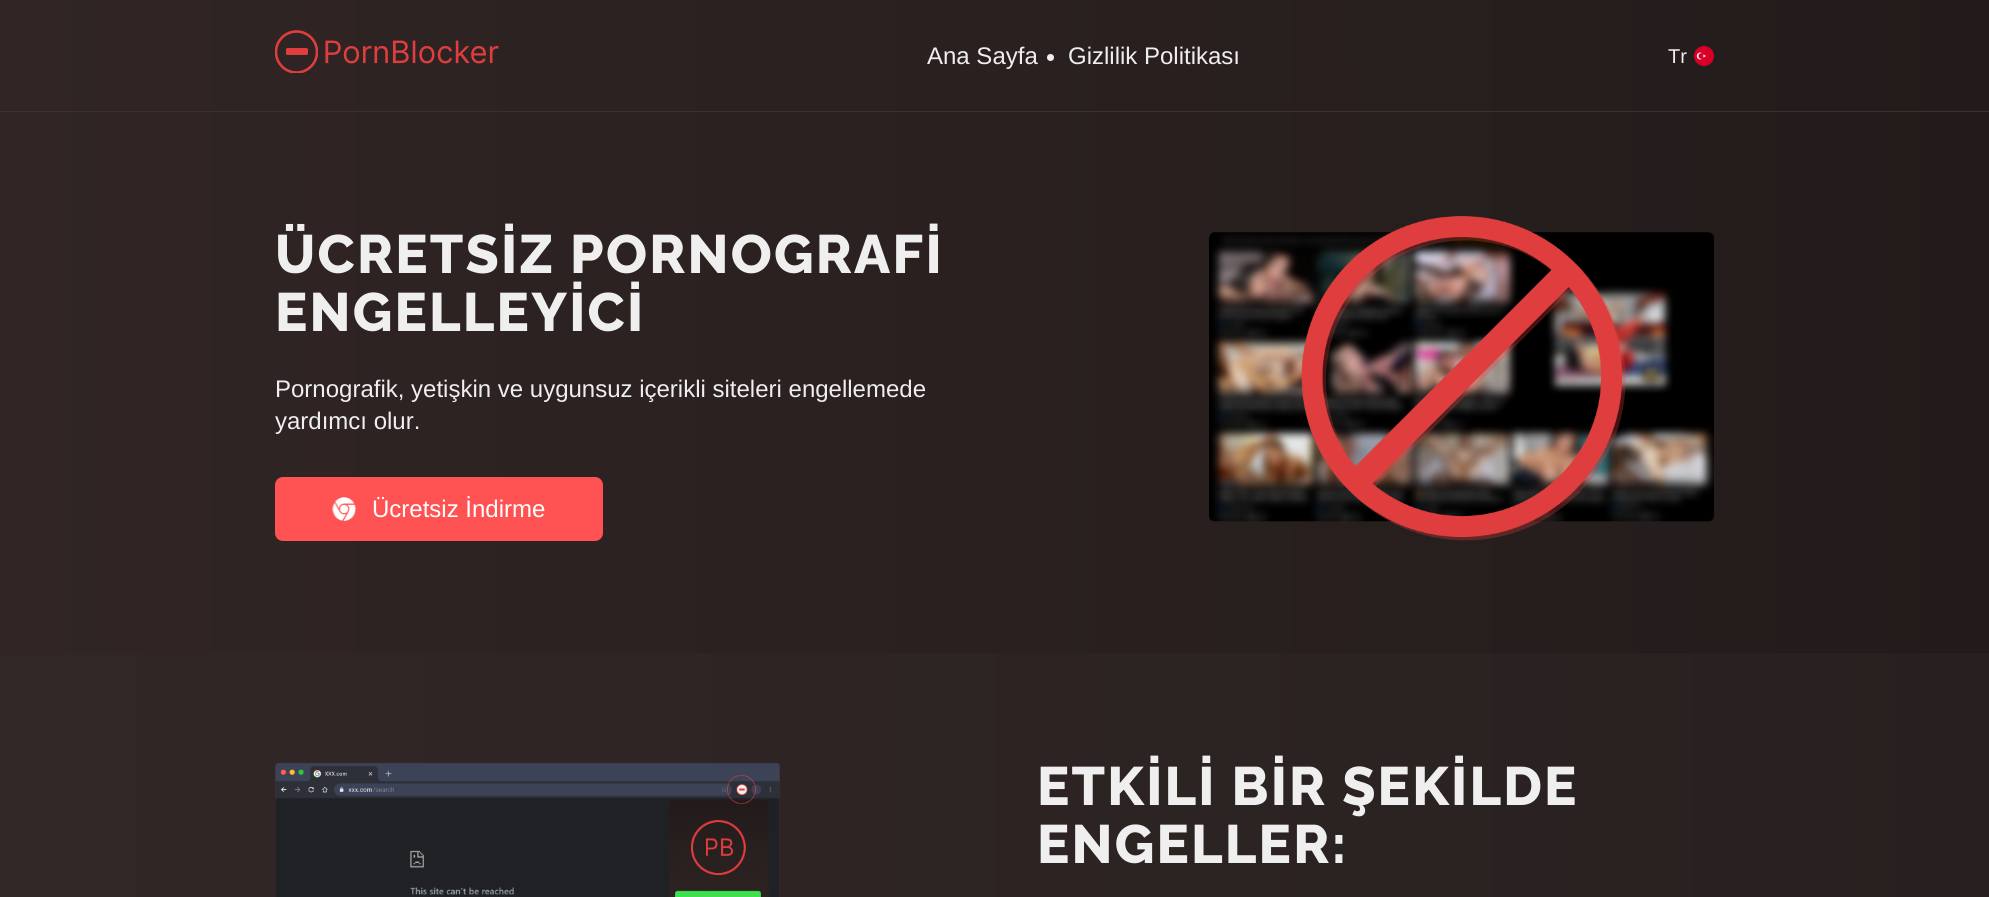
#include <cairo/cairo.h>
#include <math.h>
#include <stddef.h>


static void draw_spaced(cairo_t *cr, double x, double y, const char *s, double letter, double word) {
  cairo_move_to(cr, x, y);
  while (*s) {
    char ch[5] = {0};
    int n = 0;
    do ch[n++] = *s++; while ((*s & 0xC0) == 0x80);
    cairo_show_text(cr, ch);
    cairo_rel_move_to(cr, letter + word * (*ch == ' '), 0);
  }
}

static void rounded_rect(cairo_t *cr, double x, double y, double w, double h, double r) {
  cairo_new_sub_path(cr);
  cairo_arc(cr, x + w - r, y + h - r, r, 0, M_PI / 2);
  cairo_arc(cr, x + r, y + h - r, r, M_PI / 2, M_PI);
  cairo_arc(cr, x + r, y + r, r, M_PI, 1.5 * M_PI);
  cairo_arc(cr, x + w - r, y + r, r, 1.5 * M_PI, 2 * M_PI);
  cairo_close_path(cr);
}

static void draw_image(cairo_t *cr, const char *path, double x, double y, double w, double h) {
  cairo_surface_t *image = cairo_image_surface_create_from_png(path);
  cairo_save(cr);
  cairo_set_source_surface(cr, image, x, y);
  cairo_rectangle(cr, x, y, w, h);
  cairo_fill(cr);
  cairo_restore(cr);
  cairo_surface_destroy(image);
}

static void draw(cairo_t *cr) {
  cairo_pattern_t *gradient;
  cairo_set_source_rgb(cr, 1, 1, 1);
  cairo_paint(cr);
  gradient = cairo_pattern_create_linear(0, 449, 1989, 448);
  cairo_pattern_add_color_stop_rgba(gradient, 0, 49 / 255.0, 37 / 255.0, 37 / 255.0, 1);
  cairo_pattern_add_color_stop_rgba(gradient, 1, 35 / 255.0, 27 / 255.0, 27 / 255.0, 1);
  cairo_set_source(cr, gradient);
  cairo_pattern_destroy(gradient);
  cairo_rectangle(cr, 0, 0, 1989, 653);
  cairo_fill(cr);
  gradient = cairo_pattern_create_linear(0, 449, 1989, 448);
  cairo_pattern_add_color_stop_rgba(gradient, 0, 50 / 255.0, 39 / 255.0, 39 / 255.0, 1);
  cairo_pattern_add_color_stop_rgba(gradient, 1, 40 / 255.0, 32 / 255.0, 32 / 255.0, 1);
  cairo_set_source(cr, gradient);
  cairo_pattern_destroy(gradient);
  cairo_rectangle(cr, 0, 653, 1989, 244);
  cairo_fill(cr);
  cairo_set_source_rgb(cr, 63 / 255.0, 47 / 255.0, 47 / 255.0);
  cairo_rectangle(cr, 0, 111, 1989, 1);
  cairo_fill(cr);
  draw_image(cr, "images/1.png", 275, 30, 224, 43);
  cairo_set_source_rgb(cr, 239 / 255.0, 239 / 255.0, 239 / 255.0);
  cairo_arc(cr, 1050.5, 57.5, 3.5, 0, 2 * M_PI);
  cairo_fill(cr);
  draw_image(cr, "images/2.png", 1694, 46, 20, 20);
  cairo_set_source_rgb(cr, 1, 82 / 255.0, 82 / 255.0);
  rounded_rect(cr, 275, 477, 328, 64, 8);
  cairo_fill(cr);
  draw_image(cr, "images/3.png", 332, 497, 24, 24);
  draw_image(cr, "images/4.png", 1209, 216, 505, 325);
  draw_image(cr, "images/5.png", 275, 762, 505, 135);
  cairo_select_font_face(cr, "Liberation Sans", CAIRO_FONT_SLANT_NORMAL, CAIRO_FONT_WEIGHT_NORMAL);
  cairo_set_font_size(cr, 24);
  cairo_set_source_rgb(cr, 239 / 255.0, 239 / 255.0, 239 / 255.0);
  cairo_move_to(cr, 927, 64);
  cairo_show_text(cr, "Ana Sayfa");
  cairo_move_to(cr, 1068, 64);
  cairo_show_text(cr, "Gizlilik Politikası");
  cairo_set_font_size(cr, 20);
  cairo_move_to(cr, 1668, 63);
  cairo_show_text(cr, "Tr");
  cairo_select_font_face(cr, "Raleway Thin", CAIRO_FONT_SLANT_NORMAL, CAIRO_FONT_WEIGHT_NORMAL);
  cairo_set_font_size(cr, 54);
  draw_spaced(cr, 275, 273, "ÜCRETSİZ PORNOGRAFİ", 2.2, 0);
  draw_spaced(cr, 275, 331, "ENGELLEYİCİ", 2.2, 0);
  cairo_select_font_face(cr, "Liberation Sans", CAIRO_FONT_SLANT_NORMAL, CAIRO_FONT_WEIGHT_NORMAL);
  cairo_set_font_size(cr, 24);
  cairo_move_to(cr, 275, 397);
  cairo_show_text(cr, "Pornografik, yetişkin ve uygunsuz içerikli siteleri engellemede");
  cairo_move_to(cr, 275, 429);
  cairo_show_text(cr, "yardımcı olur.");
  cairo_set_source_rgb(cr, 1, 1, 1);
  cairo_move_to(cr, 372, 517);
  cairo_show_text(cr, "Ücretsiz İndirme");
  cairo_select_font_face(cr, "Raleway Thin", CAIRO_FONT_SLANT_NORMAL, CAIRO_FONT_WEIGHT_NORMAL);
  cairo_set_font_size(cr, 54);
  cairo_set_source_rgb(cr, 239 / 255.0, 239 / 255.0, 239 / 255.0);
  draw_spaced(cr, 1037, 805, "ETKİLİ BİR ŞEKİLDE", 2.2, 0);
  draw_spaced(cr, 1037, 863, "ENGELLER:", 2.2, 0);
}

int main(void) {
  cairo_surface_t *surface = cairo_image_surface_create(CAIRO_FORMAT_RGB24, 1989, 897);
  cairo_t *cr = cairo_create(surface);
  cairo_font_options_t *options = cairo_font_options_create();
  cairo_font_options_set_hint_metrics(options, CAIRO_HINT_METRICS_OFF);
  cairo_font_options_set_hint_style(options, CAIRO_HINT_STYLE_NONE);
  cairo_set_font_options(cr, options);
  cairo_set_miter_limit(cr, 4);
  draw(cr);
  cairo_surface_write_to_png(surface, "out.png");
  cairo_font_options_destroy(options);
  cairo_destroy(cr);
  cairo_surface_destroy(surface);
  return 0;
}
